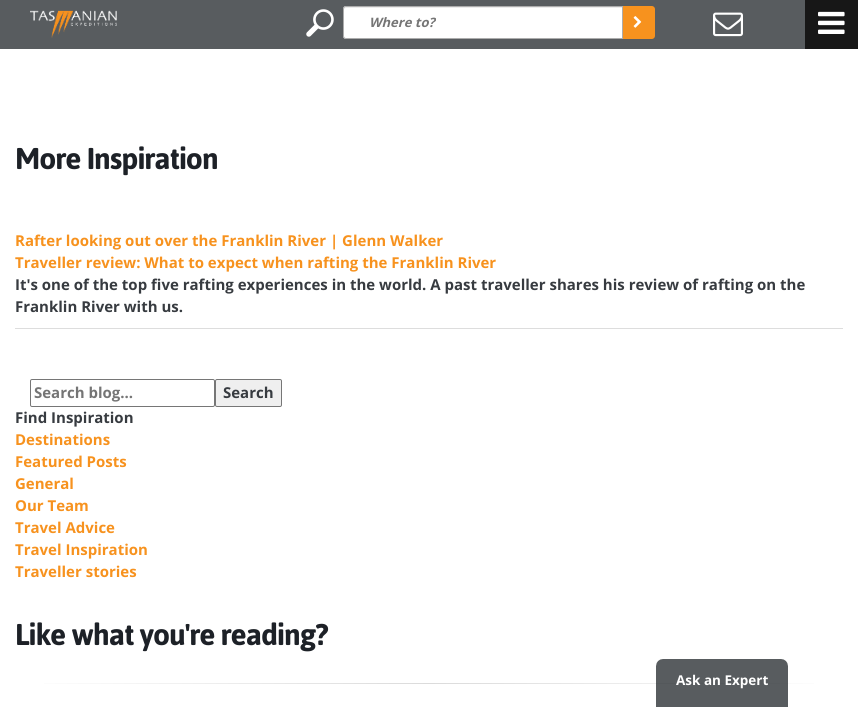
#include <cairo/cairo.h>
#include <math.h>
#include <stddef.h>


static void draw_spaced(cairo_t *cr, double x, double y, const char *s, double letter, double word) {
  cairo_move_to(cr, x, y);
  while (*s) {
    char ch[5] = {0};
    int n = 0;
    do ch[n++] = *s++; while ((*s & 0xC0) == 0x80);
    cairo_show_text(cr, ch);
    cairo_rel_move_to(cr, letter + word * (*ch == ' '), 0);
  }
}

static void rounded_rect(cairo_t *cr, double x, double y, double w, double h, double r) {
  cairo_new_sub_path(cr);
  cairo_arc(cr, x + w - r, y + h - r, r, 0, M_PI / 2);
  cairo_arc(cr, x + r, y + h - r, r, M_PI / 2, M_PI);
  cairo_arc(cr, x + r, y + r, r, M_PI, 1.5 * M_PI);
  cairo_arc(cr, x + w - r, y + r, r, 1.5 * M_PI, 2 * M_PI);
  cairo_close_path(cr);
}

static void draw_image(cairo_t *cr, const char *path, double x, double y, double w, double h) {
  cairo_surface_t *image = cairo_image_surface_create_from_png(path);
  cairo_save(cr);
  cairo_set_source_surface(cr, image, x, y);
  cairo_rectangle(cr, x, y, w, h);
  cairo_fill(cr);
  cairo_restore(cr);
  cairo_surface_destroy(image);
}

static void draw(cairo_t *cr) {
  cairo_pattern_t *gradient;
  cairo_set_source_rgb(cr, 1, 1, 1);
  cairo_paint(cr);
  cairo_set_source_rgb(cr, 88 / 255.0, 92 / 255.0, 95 / 255.0);
  cairo_rectangle(cr, 0, 0, 805, 49);
  cairo_fill(cr);
  draw_image(cr, "images/1.png", 30, 10, 87, 28);
  draw_image(cr, "images/2.png", 306, 9, 28, 28);
  cairo_set_source_rgb(cr, 1, 1, 1);
  cairo_new_path(cr);
  cairo_move_to(cr, 346, 6);
  cairo_line_to(cr, 623, 6);
  cairo_line_to(cr, 623, 39);
  cairo_line_to(cr, 346, 39);
  cairo_curve_to(cr, 344.5, 39, 343, 37.5, 343, 36);
  cairo_line_to(cr, 343, 9);
  cairo_curve_to(cr, 343, 7.5, 344.5, 6, 346, 6);
  cairo_close_path(cr);
  cairo_fill(cr);
  cairo_set_source_rgb(cr, 236 / 255.0, 236 / 255.0, 236 / 255.0);
  cairo_new_path(cr);
  cairo_move_to(cr, 346, 8);
  cairo_line_to(cr, 622, 8);
  cairo_line_to(cr, 622, 7);
  cairo_line_to(cr, 346, 7);
  cairo_curve_to(cr, 344, 7, 344, 9, 344, 10);
  cairo_curve_to(cr, 344, 9, 345, 8, 346, 8);
  cairo_close_path(cr);
  cairo_fill(cr);
  cairo_new_path(cr);
  cairo_move_to(cr, 346, 6.5);
  cairo_line_to(cr, 622.5, 6.5);
  cairo_line_to(cr, 622.5, 38.5);
  cairo_line_to(cr, 346, 38.5);
  cairo_curve_to(cr, 344.5, 38.5, 343.5, 37.5, 343.5, 36);
  cairo_line_to(cr, 343.5, 9);
  cairo_curve_to(cr, 343.5, 7.5, 344.5, 6.5, 346, 6.5);
  cairo_close_path(cr);
  cairo_set_source_rgb(cr, 172 / 255.0, 172 / 255.0, 172 / 255.0);
  cairo_set_line_width(cr, 1);
  cairo_stroke(cr);
  cairo_set_source_rgb(cr, 247 / 255.0, 146 / 255.0, 30 / 255.0);
  cairo_new_path(cr);
  cairo_move_to(cr, 623, 6);
  cairo_line_to(cr, 652, 6);
  cairo_curve_to(cr, 653.5, 6, 655, 7.5, 655, 9);
  cairo_line_to(cr, 655, 36);
  cairo_curve_to(cr, 655, 37.5, 653.5, 39, 652, 39);
  cairo_line_to(cr, 623, 39);
  cairo_close_path(cr);
  cairo_fill(cr);
  draw_image(cr, "images/3.png", 633, 16, 9, 12);
  draw_image(cr, "images/4.png", 713, 12, 30, 25);
  cairo_set_source_rgb(cr, 23 / 255.0, 23 / 255.0, 23 / 255.0);
  cairo_rectangle(cr, 805, 0, 53, 49);
  cairo_fill(cr);
  draw_image(cr, "images/5.png", 818, 11, 27, 23);
  cairo_set_source_rgb(cr, 221 / 255.0, 221 / 255.0, 221 / 255.0);
  cairo_rectangle(cr, 15, 328, 828, 1);
  cairo_fill(cr);
  rounded_rect(cr, 30.5, 379.5, 184, 27, 1.5);
  cairo_set_source_rgb(cr, 118 / 255.0, 118 / 255.0, 118 / 255.0);
  cairo_stroke(cr);
  cairo_set_source_rgb(cr, 239 / 255.0, 239 / 255.0, 239 / 255.0);
  rounded_rect(cr, 215.5, 379.5, 66, 27, 1.5);
  cairo_fill_preserve(cr);
  cairo_set_source_rgb(cr, 118 / 255.0, 118 / 255.0, 118 / 255.0);
  cairo_stroke(cr);
  gradient = cairo_pattern_create_linear(15, 684, 843, 684);
  cairo_pattern_add_color_stop_rgba(gradient, 0, 1, 1, 1, 1);
  cairo_pattern_add_color_stop_rgba(gradient, 0.5, 219 / 255.0, 219 / 255.0, 219 / 255.0, 1);
  cairo_pattern_add_color_stop_rgba(gradient, 1, 1, 1, 1, 1);
  cairo_set_source(cr, gradient);
  cairo_pattern_destroy(gradient);
  cairo_rectangle(cr, 44, 683, 770, 1);
  cairo_fill(cr);
  draw_image(cr, "images/6.png", 656, 659, 132, 48);
  cairo_select_font_face(cr, "Open Sans", CAIRO_FONT_SLANT_ITALIC, CAIRO_FONT_WEIGHT_BOLD);
  cairo_set_font_size(cr, 13);
  cairo_set_source_rgb(cr, 117 / 255.0, 117 / 255.0, 117 / 255.0);
  cairo_move_to(cr, 369, 27);
  cairo_show_text(cr, "Where to?");
  cairo_select_font_face(cr, "Asap", CAIRO_FONT_SLANT_NORMAL, CAIRO_FONT_WEIGHT_BOLD);
  cairo_set_font_size(cr, 30);
  cairo_set_source_rgb(cr, 29 / 255.0, 33 / 255.0, 39 / 255.0);
  draw_spaced(cr, 15, 169, "More Inspiration", -1, 0);
  cairo_select_font_face(cr, "Open Sans", CAIRO_FONT_SLANT_NORMAL, CAIRO_FONT_WEIGHT_BOLD);
  cairo_set_font_size(cr, 15);
  cairo_set_source_rgb(cr, 247 / 255.0, 146 / 255.0, 30 / 255.0);
  cairo_move_to(cr, 15, 246);
  cairo_show_text(cr, "Rafter looking out over the Franklin River | Glenn Walker");
  cairo_move_to(cr, 15, 268);
  cairo_show_text(cr, "Traveller review: What to expect when rafting the Franklin River");
  cairo_set_source_rgb(cr, 55 / 255.0, 59 / 255.0, 64 / 255.0);
  cairo_move_to(cr, 15, 290);
  cairo_show_text(cr, "It's one of the top five rafting experiences in the world. A past traveller shares his review of rafting on the");
  cairo_move_to(cr, 15, 312);
  cairo_show_text(cr, "Franklin River with us.");
  cairo_set_source_rgb(cr, 117 / 255.0, 117 / 255.0, 117 / 255.0);
  cairo_move_to(cr, 34, 398);
  cairo_show_text(cr, "Search blog...");
  cairo_set_source_rgb(cr, 55 / 255.0, 59 / 255.0, 64 / 255.0);
  cairo_move_to(cr, 223, 398);
  cairo_show_text(cr, "Search");
  cairo_move_to(cr, 15, 423);
  cairo_show_text(cr, "Find Inspiration");
  cairo_set_source_rgb(cr, 247 / 255.0, 146 / 255.0, 30 / 255.0);
  cairo_move_to(cr, 15, 445);
  cairo_show_text(cr, "Destinations");
  cairo_move_to(cr, 15, 467);
  cairo_show_text(cr, "Featured Posts");
  cairo_move_to(cr, 15, 489);
  cairo_show_text(cr, "General");
  cairo_move_to(cr, 15, 511);
  cairo_show_text(cr, "Our Team");
  cairo_move_to(cr, 15, 533);
  cairo_show_text(cr, "Travel Advice");
  cairo_move_to(cr, 15, 555);
  cairo_show_text(cr, "Travel Inspiration");
  cairo_move_to(cr, 15, 577);
  cairo_show_text(cr, "Traveller stories");
  cairo_select_font_face(cr, "Asap", CAIRO_FONT_SLANT_NORMAL, CAIRO_FONT_WEIGHT_BOLD);
  cairo_set_font_size(cr, 30);
  cairo_set_source_rgb(cr, 29 / 255.0, 33 / 255.0, 39 / 255.0);
  draw_spaced(cr, 15, 645, "Like what you're reading?", -1, 0);
  cairo_select_font_face(cr, "Open Sans", CAIRO_FONT_SLANT_NORMAL, CAIRO_FONT_WEIGHT_BOLD);
  cairo_set_font_size(cr, 13.5);
  cairo_set_source_rgb(cr, 1, 1, 1);
  cairo_move_to(cr, 676, 685);
  cairo_show_text(cr, "Ask an Expert");
}

int main(void) {
  cairo_surface_t *surface = cairo_image_surface_create(CAIRO_FORMAT_RGB24, 858, 707);
  cairo_t *cr = cairo_create(surface);
  cairo_font_options_t *options = cairo_font_options_create();
  cairo_font_options_set_hint_metrics(options, CAIRO_HINT_METRICS_OFF);
  cairo_font_options_set_hint_style(options, CAIRO_HINT_STYLE_NONE);
  cairo_set_font_options(cr, options);
  cairo_set_miter_limit(cr, 4);
  draw(cr);
  cairo_surface_write_to_png(surface, "out.png");
  cairo_font_options_destroy(options);
  cairo_destroy(cr);
  cairo_surface_destroy(surface);
  return 0;
}
